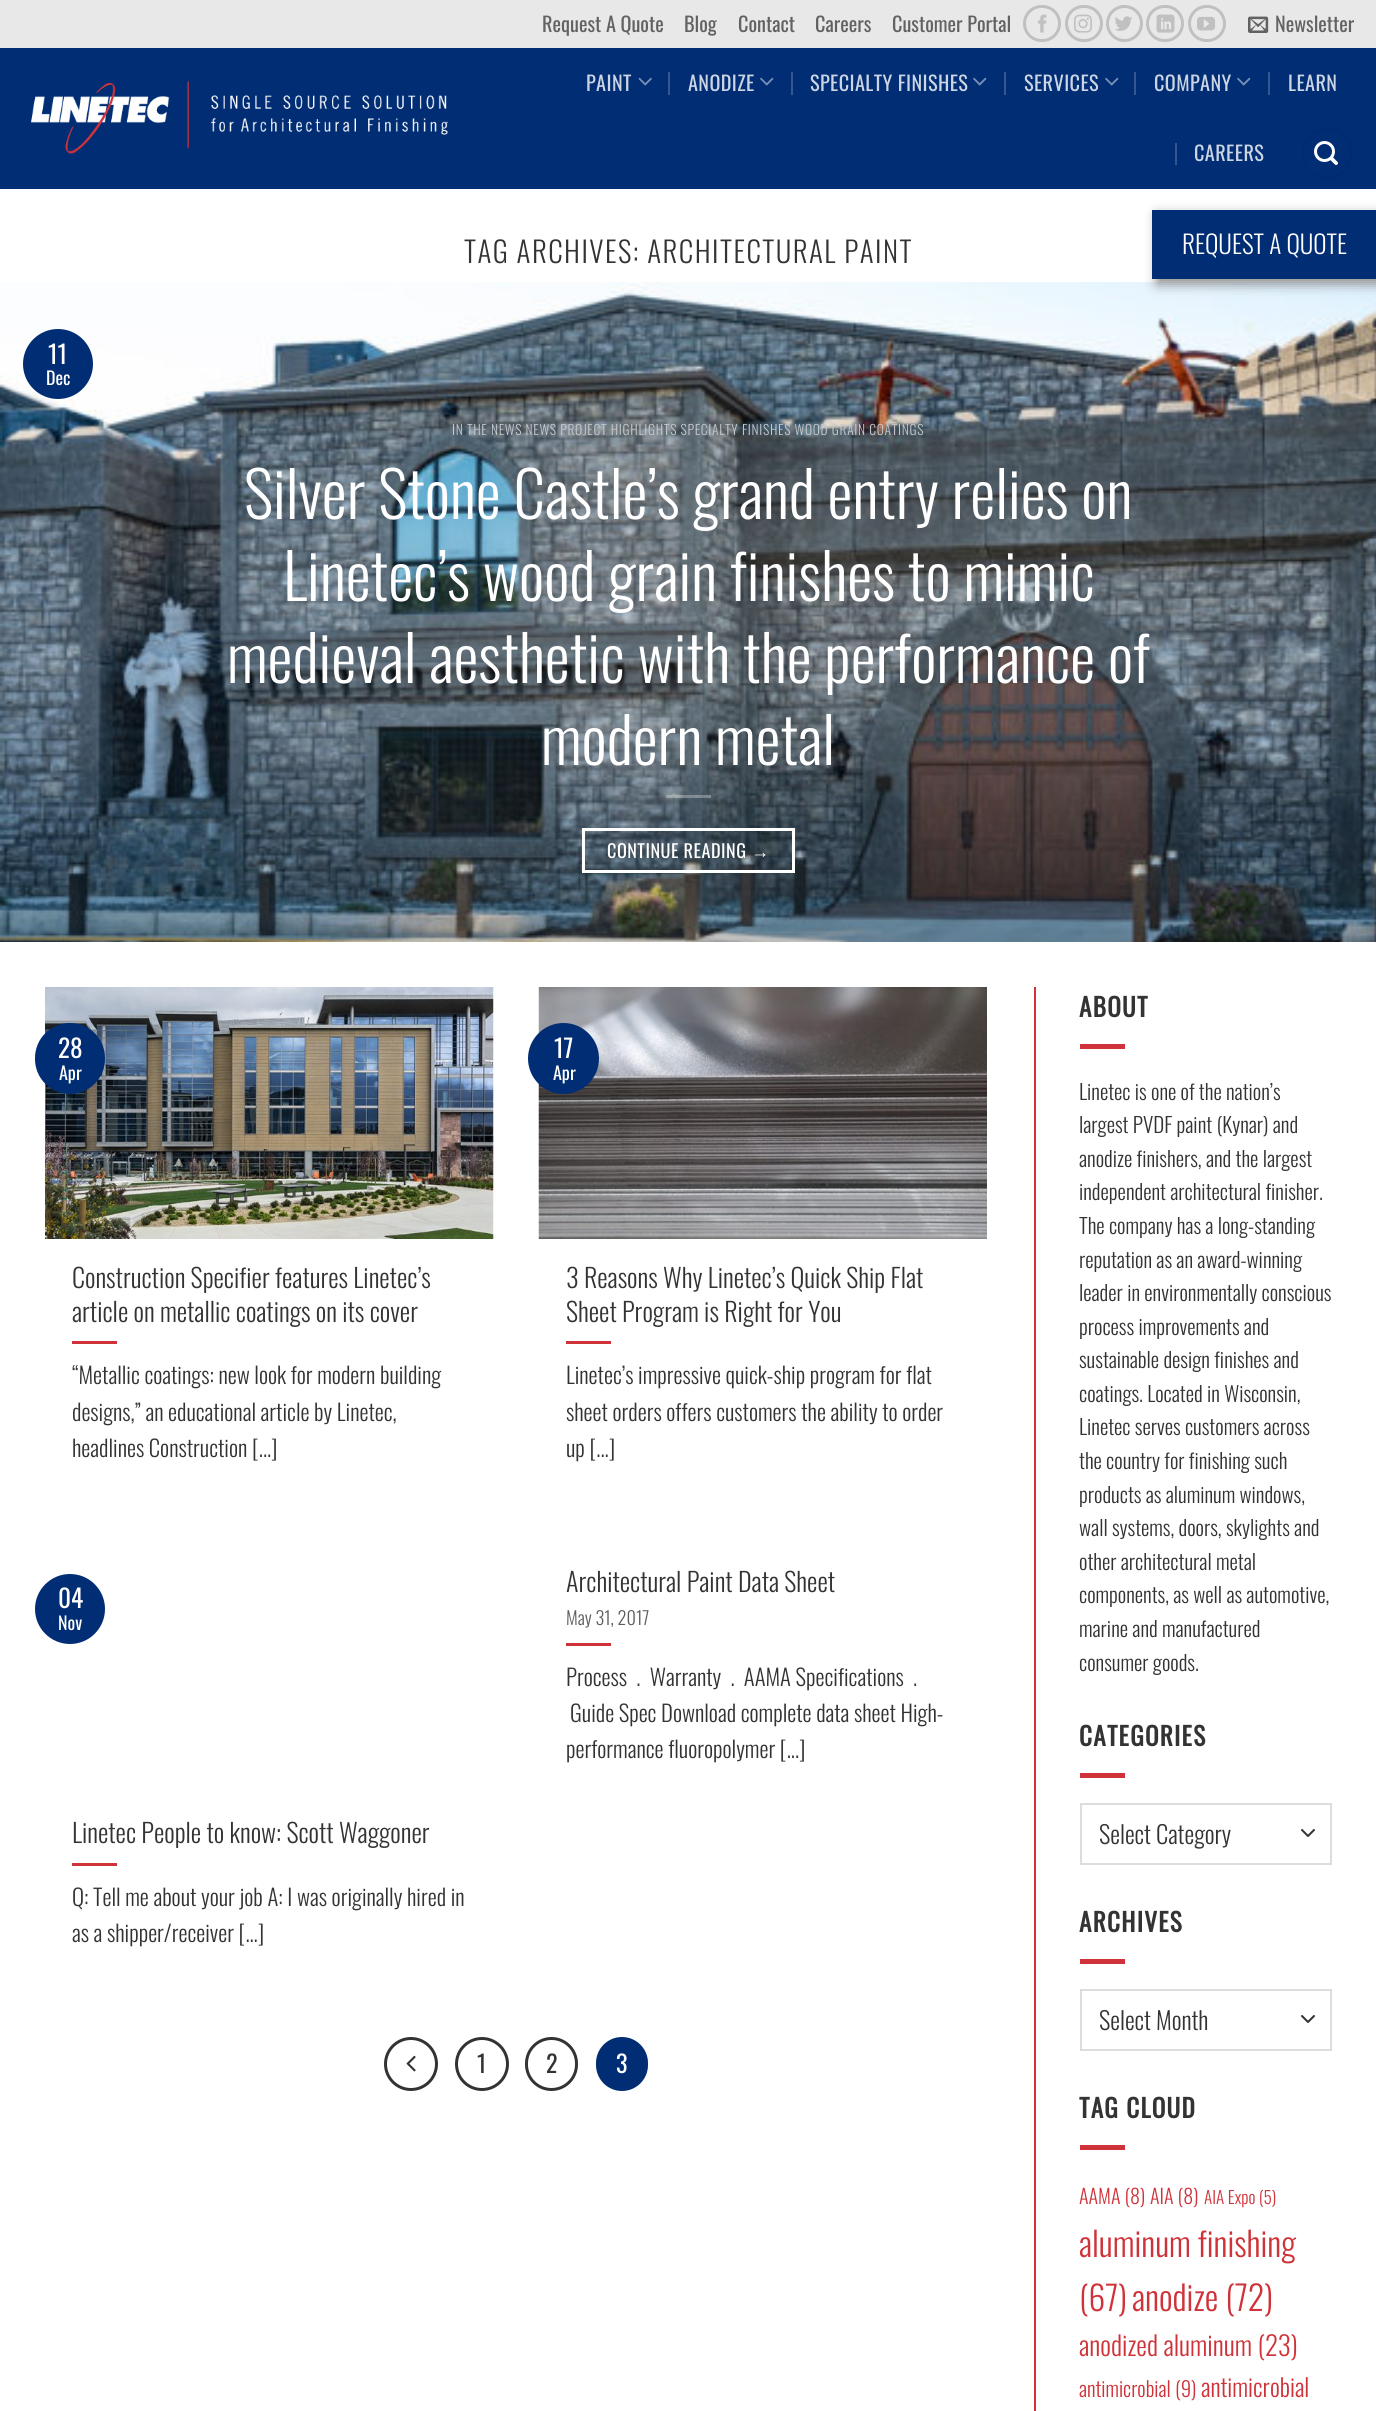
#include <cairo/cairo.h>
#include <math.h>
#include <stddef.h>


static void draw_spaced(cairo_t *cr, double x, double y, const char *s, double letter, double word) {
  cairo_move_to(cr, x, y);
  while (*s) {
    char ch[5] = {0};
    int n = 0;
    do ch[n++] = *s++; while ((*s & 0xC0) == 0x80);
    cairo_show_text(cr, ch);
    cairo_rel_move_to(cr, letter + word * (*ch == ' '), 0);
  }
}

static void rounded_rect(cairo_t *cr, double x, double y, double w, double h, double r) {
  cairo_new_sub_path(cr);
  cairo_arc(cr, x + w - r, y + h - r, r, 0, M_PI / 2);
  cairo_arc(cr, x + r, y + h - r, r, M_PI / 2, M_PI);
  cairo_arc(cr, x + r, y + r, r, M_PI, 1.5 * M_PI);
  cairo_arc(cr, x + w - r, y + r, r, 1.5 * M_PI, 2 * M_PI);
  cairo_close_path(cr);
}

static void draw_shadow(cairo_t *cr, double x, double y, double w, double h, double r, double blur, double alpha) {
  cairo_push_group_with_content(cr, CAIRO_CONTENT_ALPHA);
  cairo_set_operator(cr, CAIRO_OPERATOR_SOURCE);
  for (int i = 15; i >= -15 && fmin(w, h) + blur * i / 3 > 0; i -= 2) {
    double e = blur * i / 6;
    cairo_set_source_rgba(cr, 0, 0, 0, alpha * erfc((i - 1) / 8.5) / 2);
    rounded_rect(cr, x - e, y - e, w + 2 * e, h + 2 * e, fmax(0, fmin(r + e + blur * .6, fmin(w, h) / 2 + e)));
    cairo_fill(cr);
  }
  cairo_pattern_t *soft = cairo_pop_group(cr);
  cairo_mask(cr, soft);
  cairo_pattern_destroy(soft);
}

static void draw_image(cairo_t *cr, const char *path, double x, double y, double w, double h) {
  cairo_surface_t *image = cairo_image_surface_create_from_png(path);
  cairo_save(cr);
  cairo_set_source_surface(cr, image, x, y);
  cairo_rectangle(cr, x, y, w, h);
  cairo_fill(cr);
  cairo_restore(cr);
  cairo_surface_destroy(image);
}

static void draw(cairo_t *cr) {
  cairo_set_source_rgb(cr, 1, 1, 1);
  cairo_paint(cr);
  cairo_set_source_rgb(cr, 232 / 255.0, 232 / 255.0, 232 / 255.0);
  cairo_rectangle(cr, 0, 0, 1376, 48);
  cairo_fill(cr);
  rounded_rect(cr, 1024.5, 6.5, 35, 34, 17);
  cairo_set_source_rgb(cr, 192 / 255.0, 192 / 255.0, 192 / 255.0);
  cairo_set_line_width(cr, 3);
  cairo_stroke(cr);
  draw_image(cr, "images/1.png", 1038, 14, 9, 19);
  rounded_rect(cr, 1066.5, 6.5, 35, 34, 17);
  cairo_stroke(cr);
  draw_image(cr, "images/2.png", 1074, 14, 18, 19);
  cairo_arc(cr, 1124.5, 23.5, 17, 0, 2 * M_PI);
  cairo_stroke(cr);
  draw_image(cr, "images/3.png", 1115, 16, 18, 15);
  rounded_rect(cr, 1147.5, 6.5, 35, 34, 17);
  cairo_stroke(cr);
  draw_image(cr, "images/4.png", 1156, 14, 19, 19);
  rounded_rect(cr, 1189.5, 6.5, 35, 34, 17);
  cairo_stroke(cr);
  draw_image(cr, "images/5.png", 1197, 16, 18, 15);
  draw_image(cr, "images/6.png", 1248, 16, 21, 17);
  cairo_set_source_rgb(cr, 0, 45 / 255.0, 116 / 255.0);
  cairo_rectangle(cr, 0, 48, 1376, 141);
  cairo_fill(cr);
  draw_image(cr, "images/7.png", 31, 81, 417, 73);
  draw_image(cr, "images/8.png", 638, 77, 14, 9);
  cairo_set_source_rgb(cr, 51 / 255.0, 87 / 255.0, 144 / 255.0);
  cairo_rectangle(cr, 668, 72, 2, 23);
  cairo_fill(cr);
  draw_image(cr, "images/9.png", 760, 77, 14, 9);
  cairo_rectangle(cr, 791, 72, 2, 23);
  cairo_fill(cr);
  draw_image(cr, "images/9.png", 973, 77, 14, 9);
  cairo_rectangle(cr, 1004, 72, 2, 23);
  cairo_fill(cr);
  draw_image(cr, "images/9.png", 1105, 77, 14, 9);
  cairo_rectangle(cr, 1134, 72, 2, 23);
  cairo_fill(cr);
  draw_image(cr, "images/9.png", 1237, 77, 14, 9);
  cairo_rectangle(cr, 1268, 72, 2, 23);
  cairo_fill(cr);
  cairo_rectangle(cr, 1175, 143, 2, 22);
  cairo_fill(cr);
  rounded_rect(cr, 1303, 129, 48, 49, 24);
  cairo_set_source_rgb(cr, 0, 43 / 255.0, 110 / 255.0);
  cairo_set_line_width(cr, 2);
  cairo_stroke(cr);
  draw_image(cr, "images/10.png", 1314, 141, 24, 24);
  draw_image(cr, "images/11.png", 0, 282, 1376, 660);
  cairo_set_source_rgb(cr, 136 / 255.0, 136 / 255.0, 136 / 255.0);
  draw_shadow(cr, 1157, 215, 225, 69, 0, 6, 1);
  cairo_set_source_rgb(cr, 0, 45 / 255.0, 116 / 255.0);
  cairo_rectangle(cr, 1152, 210, 224, 69);
  cairo_fill(cr);
  cairo_arc(cr, 58, 364, 35, 0, 2 * M_PI);
  cairo_fill(cr);
  cairo_set_source_rgba(cr, 1, 1, 1, 0.3);
  cairo_rectangle(cr, 666, 795, 45, 3);
  cairo_fill(cr);
  cairo_rectangle(cr, 583.5, 829.5, 210, 42);
  cairo_set_source_rgb(cr, 1, 1, 1);
  cairo_set_line_width(cr, 3);
  cairo_stroke(cr);
  draw_image(cr, "images/12.png", 45, 987, 449, 252);
  cairo_set_source_rgb(cr, 0, 45 / 255.0, 116 / 255.0);
  rounded_rect(cr, 35, 1023, 70, 71, 35);
  cairo_fill(cr);
  cairo_set_source_rgb(cr, 207 / 255.0, 51 / 255.0, 57 / 255.0);
  cairo_rectangle(cr, 72, 1341, 45, 3);
  cairo_fill(cr);
  draw_image(cr, "images/13.png", 538, 987, 449, 252);
  cairo_set_source_rgb(cr, 0, 45 / 255.0, 116 / 255.0);
  cairo_arc(cr, 563.5, 1058.5, 35.5, 0, 2 * M_PI);
  cairo_fill(cr);
  cairo_set_source_rgb(cr, 207 / 255.0, 51 / 255.0, 57 / 255.0);
  cairo_rectangle(cr, 566, 1341, 45, 3);
  cairo_fill(cr);
  cairo_set_source_rgb(cr, 0, 45 / 255.0, 116 / 255.0);
  cairo_arc(cr, 70, 1609, 35, 0, 2 * M_PI);
  cairo_fill(cr);
  cairo_set_source_rgb(cr, 207 / 255.0, 51 / 255.0, 57 / 255.0);
  cairo_rectangle(cr, 72, 1863, 45, 3);
  cairo_fill(cr);
  cairo_rectangle(cr, 566, 1643, 45, 3);
  cairo_fill(cr);
  cairo_arc(cr, 411, 2064, 25.5, 0, 2 * M_PI);
  cairo_set_source_rgb(cr, 51 / 255.0, 51 / 255.0, 51 / 255.0);
  cairo_stroke(cr);
  draw_image(cr, "images/14.png", 406, 2055, 10, 17);
  cairo_arc(cr, 482, 2064, 25.5, 0, 2 * M_PI);
  cairo_stroke(cr);
  rounded_rect(cr, 526.5, 2038.5, 50, 51, 25);
  cairo_stroke(cr);
  cairo_set_source_rgb(cr, 0, 45 / 255.0, 116 / 255.0);
  rounded_rect(cr, 597.5, 2038.5, 49, 51, 24.5);
  cairo_fill_preserve(cr);
  cairo_stroke(cr);
  cairo_set_source_rgb(cr, 207 / 255.0, 51 / 255.0, 57 / 255.0);
  cairo_rectangle(cr, 1034, 987, 2, 1424);
  cairo_fill(cr);
  cairo_rectangle(cr, 1080, 1044, 45, 5);
  cairo_fill(cr);
  cairo_rectangle(cr, 1080, 1773, 45, 5);
  cairo_fill(cr);
  cairo_new_path(cr);
  cairo_move_to(cr, 1302, 1830);
  cairo_line_to(cr, 1308, 1836);
  cairo_line_to(cr, 1314, 1830);
  cairo_set_source_rgb(cr, 51 / 255.0, 51 / 255.0, 51 / 255.0);
  cairo_set_line_width(cr, 2);
  cairo_set_line_cap(cr, CAIRO_LINE_CAP_ROUND);
  cairo_set_line_join(cr, CAIRO_LINE_JOIN_ROUND);
  cairo_stroke(cr);
  cairo_rectangle(cr, 1081, 1804, 250, 60);
  cairo_set_source_rgb(cr, 221 / 255.0, 221 / 255.0, 221 / 255.0);
  cairo_set_line_cap(cr, CAIRO_LINE_CAP_BUTT);
  cairo_set_line_join(cr, CAIRO_LINE_JOIN_MITER);
  cairo_stroke(cr);
  cairo_set_source_rgb(cr, 207 / 255.0, 51 / 255.0, 57 / 255.0);
  cairo_rectangle(cr, 1080, 1959, 45, 5);
  cairo_fill(cr);
  cairo_new_path(cr);
  cairo_move_to(cr, 1302, 2016);
  cairo_line_to(cr, 1308, 2022);
  cairo_line_to(cr, 1314, 2016);
  cairo_set_source_rgb(cr, 51 / 255.0, 51 / 255.0, 51 / 255.0);
  cairo_set_line_cap(cr, CAIRO_LINE_CAP_ROUND);
  cairo_set_line_join(cr, CAIRO_LINE_JOIN_ROUND);
  cairo_stroke(cr);
  cairo_rectangle(cr, 1081, 1990, 250, 60);
  cairo_set_source_rgb(cr, 221 / 255.0, 221 / 255.0, 221 / 255.0);
  cairo_set_line_cap(cr, CAIRO_LINE_CAP_BUTT);
  cairo_set_line_join(cr, CAIRO_LINE_JOIN_MITER);
  cairo_stroke(cr);
  cairo_set_source_rgb(cr, 207 / 255.0, 51 / 255.0, 57 / 255.0);
  cairo_rectangle(cr, 1080, 2145, 45, 5);
  cairo_fill(cr);
  cairo_select_font_face(cr, "Oswald", CAIRO_FONT_SLANT_NORMAL, CAIRO_FONT_WEIGHT_NORMAL);
  cairo_set_font_size(cr, 20.25);
  cairo_set_source_rgb(cr, 98 / 255.0, 98 / 255.0, 98 / 255.0);
  cairo_move_to(cr, 542, 32);
  cairo_show_text(cr, "Request A Quote");
  cairo_move_to(cr, 684, 32);
  cairo_show_text(cr, "Blog");
  cairo_move_to(cr, 738, 32);
  cairo_show_text(cr, "Contact");
  cairo_move_to(cr, 815, 32);
  cairo_show_text(cr, "Careers");
  cairo_move_to(cr, 892, 32);
  cairo_show_text(cr, "Customer Portal");
  cairo_move_to(cr, 1275, 32);
  cairo_show_text(cr, "Newsletter");
  cairo_set_source_rgb(cr, 204 / 255.0, 213 / 255.0, 227 / 255.0);
  draw_spaced(cr, 586, 91, "PAINT", 0.4, 0);
  draw_spaced(cr, 688, 91, "ANODIZE", 0.4, 0);
  draw_spaced(cr, 810, 91, "SPECIALTY FINISHES", 0.4, 0);
  draw_spaced(cr, 1024, 91, "SERVICES", 0.4, 0);
  draw_spaced(cr, 1154, 91, "COMPANY", 0.4, 0);
  draw_spaced(cr, 1288, 91, "LEARN", 0.4, 0);
  draw_spaced(cr, 1194, 161, "CAREERS", 0.4, 0);
  cairo_select_font_face(cr, "Oswald Light", CAIRO_FONT_SLANT_NORMAL, CAIRO_FONT_WEIGHT_NORMAL);
  cairo_set_font_size(cr, 25.25);
  cairo_set_source_rgb(cr, 1, 1, 1);
  cairo_move_to(cr, 1182, 254);
  cairo_show_text(cr, "REQUEST A QUOTE");
  cairo_set_font_size(cr, 29);
  cairo_set_source_rgb(cr, 51 / 255.0, 51 / 255.0, 51 / 255.0);
  draw_spaced(cr, 464, 263, "TAG ARCHIVES: ARCHITECTURAL PAINT", 1.45, 0);
  cairo_select_font_face(cr, "Oswald", CAIRO_FONT_SLANT_NORMAL, CAIRO_FONT_WEIGHT_NORMAL);
  cairo_set_font_size(cr, 25.25);
  cairo_set_source_rgb(cr, 1, 1, 1);
  cairo_move_to(cr, 48, 364);
  cairo_show_text(cr, "11");
  cairo_set_font_size(cr, 18);
  cairo_move_to(cr, 46, 385);
  cairo_show_text(cr, "Dec");
  cairo_select_font_face(cr, "Oswald Light", CAIRO_FONT_SLANT_NORMAL, CAIRO_FONT_WEIGHT_NORMAL);
  cairo_set_font_size(cr, 13.6);
  cairo_set_source_rgb(cr, 198 / 255.0, 201 / 255.0, 204 / 255.0);
  draw_spaced(cr, 452, 435, "IN THE NEWS NEWS PROJECT HIGHLIGHTS SPECIALTY FINISHES WOOD GRAIN COATINGS", 0.68, 0);
  cairo_set_font_size(cr, 63);
  cairo_set_source_rgb(cr, 1, 1, 1);
  cairo_move_to(cr, 244, 519);
  cairo_show_text(cr, "Silver Stone Castle’s grand entry relies on");
  cairo_move_to(cr, 283, 601);
  cairo_show_text(cr, "Linetec’s wood grain finishes to mimic");
  cairo_move_to(cr, 227, 683);
  cairo_show_text(cr, "medieval aesthetic with the performance of");
  cairo_move_to(cr, 541, 765);
  cairo_show_text(cr, "modern metal");
  cairo_select_font_face(cr, "Oswald", CAIRO_FONT_SLANT_NORMAL, CAIRO_FONT_WEIGHT_NORMAL);
  cairo_set_font_size(cr, 18.25);
  draw_spaced(cr, 607, 858, "CONTINUE READING", 0.5, 0);
  cairo_select_font_face(cr, "Liberation Sans", CAIRO_FONT_SLANT_NORMAL, CAIRO_FONT_WEIGHT_NORMAL);
  draw_spaced(cr, 751, 858, "→", 0.5, 0);
  cairo_select_font_face(cr, "Oswald", CAIRO_FONT_SLANT_NORMAL, CAIRO_FONT_WEIGHT_NORMAL);
  cairo_set_font_size(cr, 25.25);
  cairo_move_to(cr, 58, 1058);
  cairo_show_text(cr, "28");
  cairo_set_font_size(cr, 18);
  cairo_move_to(cr, 59, 1080);
  cairo_show_text(cr, "Apr");
  cairo_select_font_face(cr, "Oswald Light", CAIRO_FONT_SLANT_NORMAL, CAIRO_FONT_WEIGHT_NORMAL);
  cairo_set_font_size(cr, 26.1);
  cairo_set_source_rgb(cr, 51 / 255.0, 51 / 255.0, 51 / 255.0);
  cairo_move_to(cr, 72, 1288);
  cairo_show_text(cr, "Construction Specifier features Linetec’s");
  cairo_move_to(cr, 72, 1322);
  cairo_show_text(cr, "article on metallic coatings on its cover");
  cairo_set_font_size(cr, 22.7);
  cairo_move_to(cr, 72, 1384);
  cairo_show_text(cr, "“Metallic coatings: new look for modern building");
  cairo_move_to(cr, 72, 1421);
  cairo_show_text(cr, "designs,” an educational article by Linetec,");
  cairo_move_to(cr, 72, 1457);
  cairo_show_text(cr, "headlines Construction [...]");
  cairo_select_font_face(cr, "Oswald", CAIRO_FONT_SLANT_NORMAL, CAIRO_FONT_WEIGHT_NORMAL);
  cairo_set_font_size(cr, 25.25);
  cairo_set_source_rgb(cr, 1, 1, 1);
  cairo_move_to(cr, 554, 1058);
  cairo_show_text(cr, "17");
  cairo_set_font_size(cr, 18);
  cairo_move_to(cr, 553, 1080);
  cairo_show_text(cr, "Apr");
  cairo_select_font_face(cr, "Oswald Light", CAIRO_FONT_SLANT_NORMAL, CAIRO_FONT_WEIGHT_NORMAL);
  cairo_set_font_size(cr, 26.1);
  cairo_set_source_rgb(cr, 51 / 255.0, 51 / 255.0, 51 / 255.0);
  cairo_move_to(cr, 566, 1288);
  cairo_show_text(cr, "3 Reasons Why Linetec’s Quick Ship Flat");
  cairo_move_to(cr, 566, 1322);
  cairo_show_text(cr, "Sheet Program is Right for You");
  cairo_set_font_size(cr, 22.7);
  cairo_move_to(cr, 566, 1384);
  cairo_show_text(cr, "Linetec’s impressive quick-ship program for flat");
  cairo_move_to(cr, 566, 1421);
  cairo_show_text(cr, "sheet orders offers customers the ability to order");
  cairo_move_to(cr, 566, 1457);
  cairo_show_text(cr, "up [...]");
  cairo_select_font_face(cr, "Oswald", CAIRO_FONT_SLANT_NORMAL, CAIRO_FONT_WEIGHT_NORMAL);
  cairo_set_font_size(cr, 25.25);
  cairo_set_source_rgb(cr, 1, 1, 1);
  cairo_move_to(cr, 58, 1608);
  cairo_show_text(cr, "04");
  cairo_set_font_size(cr, 18);
  cairo_move_to(cr, 58, 1630);
  cairo_show_text(cr, "Nov");
  cairo_select_font_face(cr, "Oswald Light", CAIRO_FONT_SLANT_NORMAL, CAIRO_FONT_WEIGHT_NORMAL);
  cairo_set_font_size(cr, 26.1);
  cairo_set_source_rgb(cr, 51 / 255.0, 51 / 255.0, 51 / 255.0);
  cairo_move_to(cr, 72, 1843);
  cairo_show_text(cr, "Linetec People to know: Scott Waggoner");
  cairo_set_font_size(cr, 22.7);
  cairo_move_to(cr, 72, 1906);
  cairo_show_text(cr, "Q: Tell me about your job A: I was originally hired in");
  cairo_move_to(cr, 72, 1942);
  cairo_show_text(cr, "as a shipper/receiver [...]");
  cairo_set_font_size(cr, 26.1);
  cairo_move_to(cr, 566, 1592);
  cairo_show_text(cr, "Architectural Paint Data Sheet");
  cairo_set_font_size(cr, 18.25);
  cairo_set_source_rgb(cr, 92 / 255.0, 92 / 255.0, 92 / 255.0);
  cairo_move_to(cr, 566, 1625);
  cairo_show_text(cr, "May 31, 2017");
  cairo_set_font_size(cr, 22.7);
  cairo_set_source_rgb(cr, 51 / 255.0, 51 / 255.0, 51 / 255.0);
  cairo_move_to(cr, 566, 1686);
  cairo_show_text(cr, "Process  .  Warranty  .  AAMA Specifications  .");
  cairo_move_to(cr, 570, 1722);
  cairo_show_text(cr, "Guide Spec Download complete data sheet High-");
  cairo_move_to(cr, 566, 1758);
  cairo_show_text(cr, "performance fluoropolymer [...]");
  cairo_select_font_face(cr, "Oswald", CAIRO_FONT_SLANT_NORMAL, CAIRO_FONT_WEIGHT_NORMAL);
  cairo_set_font_size(cr, 24);
  cairo_move_to(cr, 477, 2073);
  cairo_show_text(cr, "1");
  cairo_move_to(cr, 546, 2073);
  cairo_show_text(cr, "2");
  cairo_set_source_rgb(cr, 1, 1, 1);
  cairo_move_to(cr, 616, 2073);
  cairo_show_text(cr, "3");
  cairo_select_font_face(cr, "Oswald", CAIRO_FONT_SLANT_NORMAL, CAIRO_FONT_WEIGHT_BOLD);
  cairo_set_font_size(cr, 25.25);
  cairo_set_source_rgb(cr, 51 / 255.0, 51 / 255.0, 51 / 255.0);
  draw_spaced(cr, 1079, 1017, "ABOUT", 1.25, 0);
  cairo_select_font_face(cr, "Oswald Light", CAIRO_FONT_SLANT_NORMAL, CAIRO_FONT_WEIGHT_NORMAL);
  cairo_set_font_size(cr, 21);
  cairo_move_to(cr, 1079, 1100);
  cairo_show_text(cr, "Linetec is one of the nation’s");
  cairo_move_to(cr, 1079, 1133);
  cairo_show_text(cr, "largest PVDF paint (Kynar) and");
  cairo_move_to(cr, 1079, 1167);
  cairo_show_text(cr, "anodize finishers, and the largest");
  cairo_move_to(cr, 1079, 1200);
  cairo_show_text(cr, "independent architectural finisher.");
  cairo_move_to(cr, 1079, 1234);
  cairo_show_text(cr, "The company has a long-standing");
  cairo_move_to(cr, 1079, 1268);
  cairo_show_text(cr, "reputation as an award-winning");
  cairo_move_to(cr, 1079, 1301);
  cairo_show_text(cr, "leader in environmentally conscious");
  cairo_move_to(cr, 1079, 1335);
  cairo_show_text(cr, "process improvements and");
  cairo_move_to(cr, 1079, 1368);
  cairo_show_text(cr, "sustainable design finishes and");
  cairo_move_to(cr, 1079, 1402);
  cairo_show_text(cr, "coatings. Located in Wisconsin,");
  cairo_move_to(cr, 1079, 1435);
  cairo_show_text(cr, "Linetec serves customers across");
  cairo_move_to(cr, 1079, 1469);
  cairo_show_text(cr, "the country for finishing such");
  cairo_move_to(cr, 1079, 1503);
  cairo_show_text(cr, "products as aluminum windows,");
  cairo_move_to(cr, 1079, 1536);
  cairo_show_text(cr, "wall systems, doors, skylights and");
  cairo_move_to(cr, 1079, 1570);
  cairo_show_text(cr, "other architectural metal");
  cairo_move_to(cr, 1079, 1603);
  cairo_show_text(cr, "components, as well as automotive,");
  cairo_move_to(cr, 1079, 1637);
  cairo_show_text(cr, "marine and manufactured");
  cairo_move_to(cr, 1079, 1671);
  cairo_show_text(cr, "consumer goods.");
  cairo_select_font_face(cr, "Oswald", CAIRO_FONT_SLANT_NORMAL, CAIRO_FONT_WEIGHT_BOLD);
  cairo_set_font_size(cr, 25.25);
  draw_spaced(cr, 1079, 1746, "CATEGORIES", 1.25, 0);
  cairo_select_font_face(cr, "Oswald Light", CAIRO_FONT_SLANT_NORMAL, CAIRO_FONT_WEIGHT_NORMAL);
  cairo_set_font_size(cr, 24.5);
  cairo_move_to(cr, 1099, 1844);
  cairo_show_text(cr, "Select Category");
  cairo_select_font_face(cr, "Oswald", CAIRO_FONT_SLANT_NORMAL, CAIRO_FONT_WEIGHT_BOLD);
  cairo_set_font_size(cr, 25.25);
  draw_spaced(cr, 1079, 1932, "ARCHIVES", 1.25, 0);
  cairo_select_font_face(cr, "Oswald Light", CAIRO_FONT_SLANT_NORMAL, CAIRO_FONT_WEIGHT_NORMAL);
  cairo_set_font_size(cr, 24.5);
  cairo_move_to(cr, 1099, 2030);
  cairo_show_text(cr, "Select Month");
  cairo_select_font_face(cr, "Oswald", CAIRO_FONT_SLANT_NORMAL, CAIRO_FONT_WEIGHT_BOLD);
  cairo_set_font_size(cr, 25.25);
  draw_spaced(cr, 1079, 2118, "TAG CLOUD", 1.25, 0);
  cairo_select_font_face(cr, "Oswald Light", CAIRO_FONT_SLANT_NORMAL, CAIRO_FONT_WEIGHT_NORMAL);
  cairo_set_font_size(cr, 20);
  cairo_set_source_rgb(cr, 207 / 255.0, 51 / 255.0, 57 / 255.0);
  cairo_move_to(cr, 1079, 2204);
  cairo_show_text(cr, "AAMA (8)");
  cairo_move_to(cr, 1150, 2204);
  cairo_show_text(cr, "AIA (8)");
  cairo_set_font_size(cr, 17.25);
  cairo_move_to(cr, 1204, 2204);
  cairo_show_text(cr, "AIA Expo (5)");
  cairo_set_font_size(cr, 33.75);
  cairo_move_to(cr, 1079, 2257);
  cairo_show_text(cr, "aluminum finishing");
  cairo_move_to(cr, 1079, 2311);
  cairo_show_text(cr, "(67)");
  cairo_set_font_size(cr, 34);
  cairo_move_to(cr, 1132, 2311);
  cairo_show_text(cr, "anodize (72)");
  cairo_set_font_size(cr, 26.75);
  cairo_move_to(cr, 1079, 2356);
  cairo_show_text(cr, "anodized aluminum (23)");
  cairo_set_font_size(cr, 20.75);
  cairo_move_to(cr, 1079, 2397);
  cairo_show_text(cr, "antimicrobial (9)");
  cairo_set_font_size(cr, 24.5);
  cairo_move_to(cr, 1201, 2397);
  cairo_show_text(cr, "antimicrobial");
}

int main(void) {
  cairo_surface_t *surface = cairo_image_surface_create(CAIRO_FORMAT_RGB24, 1376, 2411);
  cairo_t *cr = cairo_create(surface);
  cairo_font_options_t *options = cairo_font_options_create();
  cairo_font_options_set_hint_metrics(options, CAIRO_HINT_METRICS_OFF);
  cairo_font_options_set_hint_style(options, CAIRO_HINT_STYLE_NONE);
  cairo_set_font_options(cr, options);
  cairo_set_miter_limit(cr, 4);
  draw(cr);
  cairo_surface_write_to_png(surface, "out.png");
  cairo_font_options_destroy(options);
  cairo_destroy(cr);
  cairo_surface_destroy(surface);
  return 0;
}
